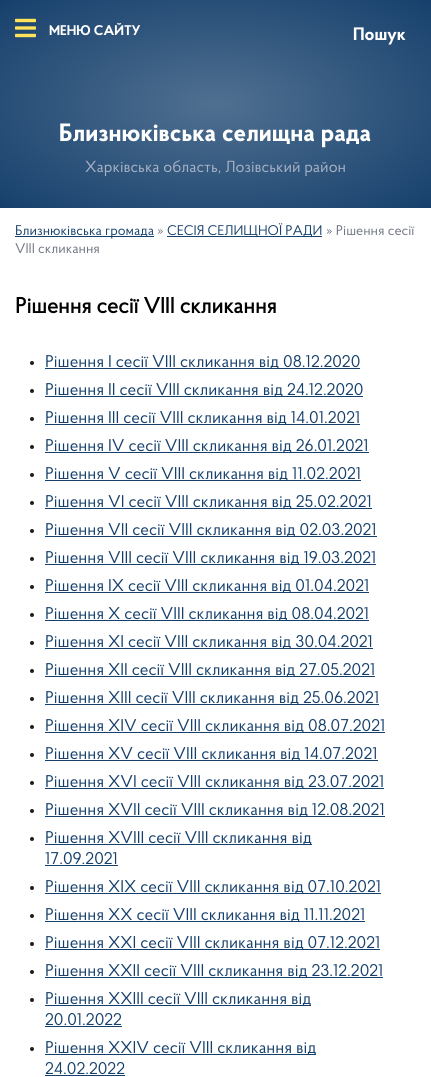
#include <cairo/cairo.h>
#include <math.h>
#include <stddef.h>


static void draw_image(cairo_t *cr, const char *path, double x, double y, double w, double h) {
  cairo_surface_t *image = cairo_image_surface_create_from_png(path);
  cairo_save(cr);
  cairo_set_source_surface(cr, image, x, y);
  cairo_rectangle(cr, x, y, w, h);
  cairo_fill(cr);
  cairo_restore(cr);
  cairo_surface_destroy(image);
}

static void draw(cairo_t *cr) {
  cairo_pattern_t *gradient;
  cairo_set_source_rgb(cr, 1, 1, 1);
  cairo_paint(cr);
  gradient = cairo_pattern_create_radial(0, 0, 0, 0, 0, 1);
  cairo_pattern_set_matrix(gradient, &(cairo_matrix_t){1.0 / 305, 0, 0, 1.0 / 147, -1.0 * 216 / 305, -1.0 * 104 / 147});
  cairo_pattern_add_color_stop_rgba(gradient, 0, 80 / 255.0, 112 / 255.0, 145 / 255.0, 1);
  cairo_pattern_add_color_stop_rgba(gradient, 1, 22 / 255.0, 64 / 255.0, 108 / 255.0, 1);
  cairo_set_source(cr, gradient);
  cairo_pattern_destroy(gradient);
  cairo_rectangle(cr, 0, 0, 431, 208);
  cairo_fill(cr);
  draw_image(cr, "images/1.png", 15, 18, 21, 20);
  cairo_set_source_rgb(cr, 22 / 255.0, 64 / 255.0, 108 / 255.0);
  cairo_rectangle(cr, 15, 236, 139, 1);
  cairo_fill(cr);
  cairo_rectangle(cr, 167, 236, 155, 1);
  cairo_fill(cr);
  cairo_set_source_rgb(cr, 29 / 255.0, 29 / 255.0, 27 / 255.0);
  cairo_arc(cr, 32, 363, 2, 0, 2 * M_PI);
  cairo_fill(cr);
  cairo_set_source_rgb(cr, 22 / 255.0, 64 / 255.0, 108 / 255.0);
  cairo_rectangle(cr, 45, 368, 315, 1);
  cairo_fill(cr);
  cairo_set_source_rgb(cr, 29 / 255.0, 29 / 255.0, 27 / 255.0);
  cairo_arc(cr, 32, 391, 2, 0, 2 * M_PI);
  cairo_fill(cr);
  cairo_set_source_rgb(cr, 22 / 255.0, 64 / 255.0, 108 / 255.0);
  cairo_rectangle(cr, 45, 396, 318, 1);
  cairo_fill(cr);
  cairo_set_source_rgb(cr, 29 / 255.0, 29 / 255.0, 27 / 255.0);
  cairo_arc(cr, 32, 419, 2, 0, 2 * M_PI);
  cairo_fill(cr);
  cairo_set_source_rgb(cr, 22 / 255.0, 64 / 255.0, 108 / 255.0);
  cairo_rectangle(cr, 45, 424, 315, 1);
  cairo_fill(cr);
  cairo_set_source_rgb(cr, 29 / 255.0, 29 / 255.0, 27 / 255.0);
  cairo_arc(cr, 32, 447, 2, 0, 2 * M_PI);
  cairo_fill(cr);
  cairo_set_source_rgb(cr, 22 / 255.0, 64 / 255.0, 108 / 255.0);
  cairo_rectangle(cr, 45, 452, 324, 1);
  cairo_fill(cr);
  cairo_set_source_rgb(cr, 29 / 255.0, 29 / 255.0, 27 / 255.0);
  cairo_arc(cr, 32, 475, 2, 0, 2 * M_PI);
  cairo_fill(cr);
  cairo_set_source_rgb(cr, 22 / 255.0, 64 / 255.0, 108 / 255.0);
  cairo_rectangle(cr, 45, 480, 316, 1);
  cairo_fill(cr);
  cairo_set_source_rgb(cr, 29 / 255.0, 29 / 255.0, 27 / 255.0);
  cairo_arc(cr, 32, 503, 2, 0, 2 * M_PI);
  cairo_fill(cr);
  cairo_set_source_rgb(cr, 22 / 255.0, 64 / 255.0, 108 / 255.0);
  cairo_rectangle(cr, 45, 508, 327, 1);
  cairo_fill(cr);
  cairo_set_source_rgb(cr, 29 / 255.0, 29 / 255.0, 27 / 255.0);
  cairo_arc(cr, 32, 531, 2, 0, 2 * M_PI);
  cairo_fill(cr);
  cairo_set_source_rgb(cr, 22 / 255.0, 64 / 255.0, 108 / 255.0);
  cairo_rectangle(cr, 45, 536, 332, 1);
  cairo_fill(cr);
  cairo_set_source_rgb(cr, 29 / 255.0, 29 / 255.0, 27 / 255.0);
  cairo_arc(cr, 32, 559, 2, 0, 2 * M_PI);
  cairo_fill(cr);
  cairo_set_source_rgb(cr, 22 / 255.0, 64 / 255.0, 108 / 255.0);
  cairo_rectangle(cr, 45, 564, 331, 1);
  cairo_fill(cr);
  cairo_set_source_rgb(cr, 29 / 255.0, 29 / 255.0, 27 / 255.0);
  cairo_arc(cr, 32, 587, 2, 0, 2 * M_PI);
  cairo_fill(cr);
  cairo_set_source_rgb(cr, 22 / 255.0, 64 / 255.0, 108 / 255.0);
  cairo_rectangle(cr, 45, 592, 324, 1);
  cairo_fill(cr);
  cairo_set_source_rgb(cr, 29 / 255.0, 29 / 255.0, 27 / 255.0);
  cairo_arc(cr, 32, 615, 2, 0, 2 * M_PI);
  cairo_fill(cr);
  cairo_set_source_rgb(cr, 22 / 255.0, 64 / 255.0, 108 / 255.0);
  cairo_rectangle(cr, 45, 620, 324, 1);
  cairo_fill(cr);
  cairo_set_source_rgb(cr, 29 / 255.0, 29 / 255.0, 27 / 255.0);
  cairo_arc(cr, 32, 643, 2, 0, 2 * M_PI);
  cairo_fill(cr);
  cairo_set_source_rgb(cr, 22 / 255.0, 64 / 255.0, 108 / 255.0);
  cairo_rectangle(cr, 45, 648, 328, 1);
  cairo_fill(cr);
  cairo_set_source_rgb(cr, 29 / 255.0, 29 / 255.0, 27 / 255.0);
  cairo_arc(cr, 32, 671, 2, 0, 2 * M_PI);
  cairo_fill(cr);
  cairo_set_source_rgb(cr, 22 / 255.0, 64 / 255.0, 108 / 255.0);
  cairo_rectangle(cr, 45, 676, 330, 1);
  cairo_fill(cr);
  cairo_set_source_rgb(cr, 29 / 255.0, 29 / 255.0, 27 / 255.0);
  cairo_arc(cr, 32, 699, 2, 0, 2 * M_PI);
  cairo_fill(cr);
  cairo_set_source_rgb(cr, 22 / 255.0, 64 / 255.0, 108 / 255.0);
  cairo_rectangle(cr, 45, 704, 334, 1);
  cairo_fill(cr);
  cairo_set_source_rgb(cr, 29 / 255.0, 29 / 255.0, 27 / 255.0);
  cairo_arc(cr, 32, 727, 2, 0, 2 * M_PI);
  cairo_fill(cr);
  cairo_set_source_rgb(cr, 22 / 255.0, 64 / 255.0, 108 / 255.0);
  cairo_rectangle(cr, 45, 732, 340, 1);
  cairo_fill(cr);
  cairo_set_source_rgb(cr, 29 / 255.0, 29 / 255.0, 27 / 255.0);
  cairo_arc(cr, 32, 755, 2, 0, 2 * M_PI);
  cairo_fill(cr);
  cairo_set_source_rgb(cr, 22 / 255.0, 64 / 255.0, 108 / 255.0);
  cairo_rectangle(cr, 45, 760, 333, 1);
  cairo_fill(cr);
  cairo_set_source_rgb(cr, 29 / 255.0, 29 / 255.0, 27 / 255.0);
  cairo_arc(cr, 32, 783, 2, 0, 2 * M_PI);
  cairo_fill(cr);
  cairo_set_source_rgb(cr, 22 / 255.0, 64 / 255.0, 108 / 255.0);
  cairo_rectangle(cr, 45, 788, 339, 1);
  cairo_fill(cr);
  cairo_set_source_rgb(cr, 29 / 255.0, 29 / 255.0, 27 / 255.0);
  cairo_arc(cr, 32, 811, 2, 0, 2 * M_PI);
  cairo_fill(cr);
  cairo_set_source_rgb(cr, 22 / 255.0, 64 / 255.0, 108 / 255.0);
  cairo_rectangle(cr, 45, 816, 340, 1);
  cairo_fill(cr);
  cairo_set_source_rgb(cr, 29 / 255.0, 29 / 255.0, 27 / 255.0);
  cairo_arc(cr, 32, 839, 2, 0, 2 * M_PI);
  cairo_fill(cr);
  cairo_set_source_rgb(cr, 22 / 255.0, 64 / 255.0, 108 / 255.0);
  cairo_rectangle(cr, 45, 844, 267, 1);
  cairo_fill(cr);
  cairo_rectangle(cr, 45, 865, 73, 1);
  cairo_fill(cr);
  cairo_set_source_rgb(cr, 29 / 255.0, 29 / 255.0, 27 / 255.0);
  cairo_arc(cr, 32, 888, 2, 0, 2 * M_PI);
  cairo_fill(cr);
  cairo_set_source_rgb(cr, 22 / 255.0, 64 / 255.0, 108 / 255.0);
  cairo_rectangle(cr, 45, 893, 336, 1);
  cairo_fill(cr);
  cairo_set_source_rgb(cr, 29 / 255.0, 29 / 255.0, 27 / 255.0);
  cairo_arc(cr, 32, 916, 2, 0, 2 * M_PI);
  cairo_fill(cr);
  cairo_set_source_rgb(cr, 22 / 255.0, 64 / 255.0, 108 / 255.0);
  cairo_rectangle(cr, 45, 921, 320, 1);
  cairo_fill(cr);
  cairo_set_source_rgb(cr, 29 / 255.0, 29 / 255.0, 27 / 255.0);
  cairo_arc(cr, 32, 944, 2, 0, 2 * M_PI);
  cairo_fill(cr);
  cairo_set_source_rgb(cr, 22 / 255.0, 64 / 255.0, 108 / 255.0);
  cairo_rectangle(cr, 45, 949, 335, 1);
  cairo_fill(cr);
  cairo_set_source_rgb(cr, 29 / 255.0, 29 / 255.0, 27 / 255.0);
  cairo_arc(cr, 32, 972, 2, 0, 2 * M_PI);
  cairo_fill(cr);
  cairo_set_source_rgb(cr, 22 / 255.0, 64 / 255.0, 108 / 255.0);
  cairo_rectangle(cr, 45, 977, 338, 1);
  cairo_fill(cr);
  cairo_set_source_rgb(cr, 29 / 255.0, 29 / 255.0, 27 / 255.0);
  cairo_arc(cr, 32, 1000, 2, 0, 2 * M_PI);
  cairo_fill(cr);
  cairo_set_source_rgb(cr, 22 / 255.0, 64 / 255.0, 108 / 255.0);
  cairo_rectangle(cr, 45, 1005, 266, 1);
  cairo_fill(cr);
  cairo_rectangle(cr, 45, 1026, 77, 1);
  cairo_fill(cr);
  cairo_set_source_rgb(cr, 29 / 255.0, 29 / 255.0, 27 / 255.0);
  cairo_arc(cr, 32, 1049, 2, 0, 2 * M_PI);
  cairo_fill(cr);
  cairo_set_source_rgb(cr, 22 / 255.0, 64 / 255.0, 108 / 255.0);
  cairo_rectangle(cr, 45, 1054, 271, 1);
  cairo_fill(cr);
  cairo_rectangle(cr, 45, 1075, 80, 1);
  cairo_fill(cr);
  cairo_select_font_face(cr, "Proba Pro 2", CAIRO_FONT_SLANT_NORMAL, CAIRO_FONT_WEIGHT_BOLD);
  cairo_set_font_size(cr, 14);
  cairo_set_source_rgb(cr, 1, 1, 1);
  cairo_move_to(cr, 49, 35);
  cairo_show_text(cr, "МЕНЮ САЙТУ");
  cairo_set_font_size(cr, 18);
  cairo_move_to(cr, 353, 40);
  cairo_show_text(cr, "Пошук");
  cairo_set_font_size(cr, 25);
  cairo_move_to(cr, 59, 141);
  cairo_show_text(cr, "Близнюківська селищна рада");
  cairo_select_font_face(cr, "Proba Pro", CAIRO_FONT_SLANT_NORMAL, CAIRO_FONT_WEIGHT_NORMAL);
  cairo_set_font_size(cr, 16);
  cairo_set_source_rgb(cr, 170 / 255.0, 179 / 255.0, 198 / 255.0);
  cairo_move_to(cr, 85, 172);
  cairo_show_text(cr, "Харківська область, Лозівський район");
  cairo_set_font_size(cr, 14);
  cairo_set_source_rgb(cr, 22 / 255.0, 64 / 255.0, 108 / 255.0);
  cairo_move_to(cr, 15, 235);
  cairo_show_text(cr, "Близнюківська громада");
  cairo_set_source_rgb(cr, 109 / 255.0, 115 / 255.0, 129 / 255.0);
  cairo_move_to(cr, 157, 235);
  cairo_show_text(cr, "»");
  cairo_set_source_rgb(cr, 22 / 255.0, 64 / 255.0, 108 / 255.0);
  cairo_move_to(cr, 167, 235);
  cairo_show_text(cr, "СЕСІЯ СЕЛИЩНОЇ РАДИ");
  cairo_set_source_rgb(cr, 109 / 255.0, 115 / 255.0, 129 / 255.0);
  cairo_move_to(cr, 326, 235);
  cairo_show_text(cr, "» Рішення сесії");
  cairo_move_to(cr, 15, 253);
  cairo_show_text(cr, "VIII скликання");
  cairo_select_font_face(cr, "Proba Pro", CAIRO_FONT_SLANT_NORMAL, CAIRO_FONT_WEIGHT_BOLD);
  cairo_set_font_size(cr, 22);
  cairo_set_source_rgb(cr, 0, 0, 0);
  cairo_move_to(cr, 15, 313);
  cairo_show_text(cr, "Рішення сесії VIII скликання");
  cairo_select_font_face(cr, "Proba Pro", CAIRO_FONT_SLANT_NORMAL, CAIRO_FONT_WEIGHT_NORMAL);
  cairo_set_font_size(cr, 17);
  cairo_set_source_rgb(cr, 22 / 255.0, 64 / 255.0, 108 / 255.0);
  cairo_move_to(cr, 45, 367);
  cairo_show_text(cr, "Рішення І сесії VІІІ скликання від 08.12.2020");
  cairo_move_to(cr, 45, 395);
  cairo_show_text(cr, "Рішення ІІ сесії VІІІ скликання від 24.12.2020");
  cairo_move_to(cr, 45, 423);
  cairo_show_text(cr, "Рішення ІІІ сесії VІІІ скликання від 14.01.2021");
  cairo_move_to(cr, 45, 451);
  cairo_show_text(cr, "Рішення ІV сесії VІІІ скликання від 26.01.2021");
  cairo_move_to(cr, 45, 479);
  cairo_show_text(cr, "Рішення V сесії VІІІ скликання від 11.02.2021");
  cairo_move_to(cr, 45, 507);
  cairo_show_text(cr, "Рішення VІ сесії VІІІ скликання від 25.02.2021");
  cairo_move_to(cr, 45, 535);
  cairo_show_text(cr, "Рішення VІІ сесії VІІІ скликання від 02.03.2021");
  cairo_move_to(cr, 45, 563);
  cairo_show_text(cr, "Рішення VІІІ сесії VІІІ скликання від 19.03.2021");
  cairo_move_to(cr, 45, 591);
  cairo_show_text(cr, "Рішення ІX сесії VІІІ скликання від 01.04.2021");
  cairo_move_to(cr, 45, 619);
  cairo_show_text(cr, "Рішення X сесії VІІІ скликання від 08.04.2021");
  cairo_move_to(cr, 45, 647);
  cairo_show_text(cr, "Рішення XІ сесії VІІІ скликання від 30.04.2021");
  cairo_move_to(cr, 45, 675);
  cairo_show_text(cr, "Рішення XІI сесії VІІІ скликання від 27.05.2021");
  cairo_move_to(cr, 45, 703);
  cairo_show_text(cr, "Рішення XІІІ сесії VІІІ скликання від 25.06.2021");
  cairo_move_to(cr, 45, 731);
  cairo_show_text(cr, "Рішення XIV сесії VІІІ скликання від 08.07.2021");
  cairo_move_to(cr, 45, 759);
  cairo_show_text(cr, "Рішення XV сесії VІІІ скликання від 14.07.2021");
  cairo_move_to(cr, 45, 787);
  cairo_show_text(cr, "Рішення XVІ сесії VІІІ скликання від 23.07.2021");
  cairo_move_to(cr, 45, 815);
  cairo_show_text(cr, "Рішення XVІІ сесії VІІІ скликання від 12.08.2021");
  cairo_move_to(cr, 45, 843);
  cairo_show_text(cr, "Рішення XVІІІ сесії VІІІ скликання від");
  cairo_move_to(cr, 45, 864);
  cairo_show_text(cr, "17.09.2021");
  cairo_move_to(cr, 45, 892);
  cairo_show_text(cr, "Рішення XІХ сесії VІІІ скликання від 07.10.2021");
  cairo_move_to(cr, 45, 920);
  cairo_show_text(cr, "Рішення ХХ сесії VІІІ скликання від 11.11.2021");
  cairo_move_to(cr, 45, 948);
  cairo_show_text(cr, "Рішення ХХІ сесії VІІІ скликання від 07.12.2021");
  cairo_move_to(cr, 45, 976);
  cairo_show_text(cr, "Рішення ХХІІ сесії VІІІ скликання від 23.12.2021");
  cairo_move_to(cr, 45, 1004);
  cairo_show_text(cr, "Рішення ХХІІІ сесії VІІІ скликання від");
  cairo_move_to(cr, 45, 1025);
  cairo_show_text(cr, "20.01.2022");
  cairo_move_to(cr, 45, 1053);
  cairo_show_text(cr, "Рішення ХХIV сесії VІІІ скликання від");
  cairo_move_to(cr, 45, 1074);
  cairo_show_text(cr, "24.02.2022");
}

int main(void) {
  cairo_surface_t *surface = cairo_image_surface_create(CAIRO_FORMAT_RGB24, 431, 1077);
  cairo_t *cr = cairo_create(surface);
  cairo_font_options_t *options = cairo_font_options_create();
  cairo_font_options_set_hint_metrics(options, CAIRO_HINT_METRICS_OFF);
  cairo_font_options_set_hint_style(options, CAIRO_HINT_STYLE_NONE);
  cairo_set_font_options(cr, options);
  cairo_set_miter_limit(cr, 4);
  draw(cr);
  cairo_surface_write_to_png(surface, "out.png");
  cairo_font_options_destroy(options);
  cairo_destroy(cr);
  cairo_surface_destroy(surface);
  return 0;
}
